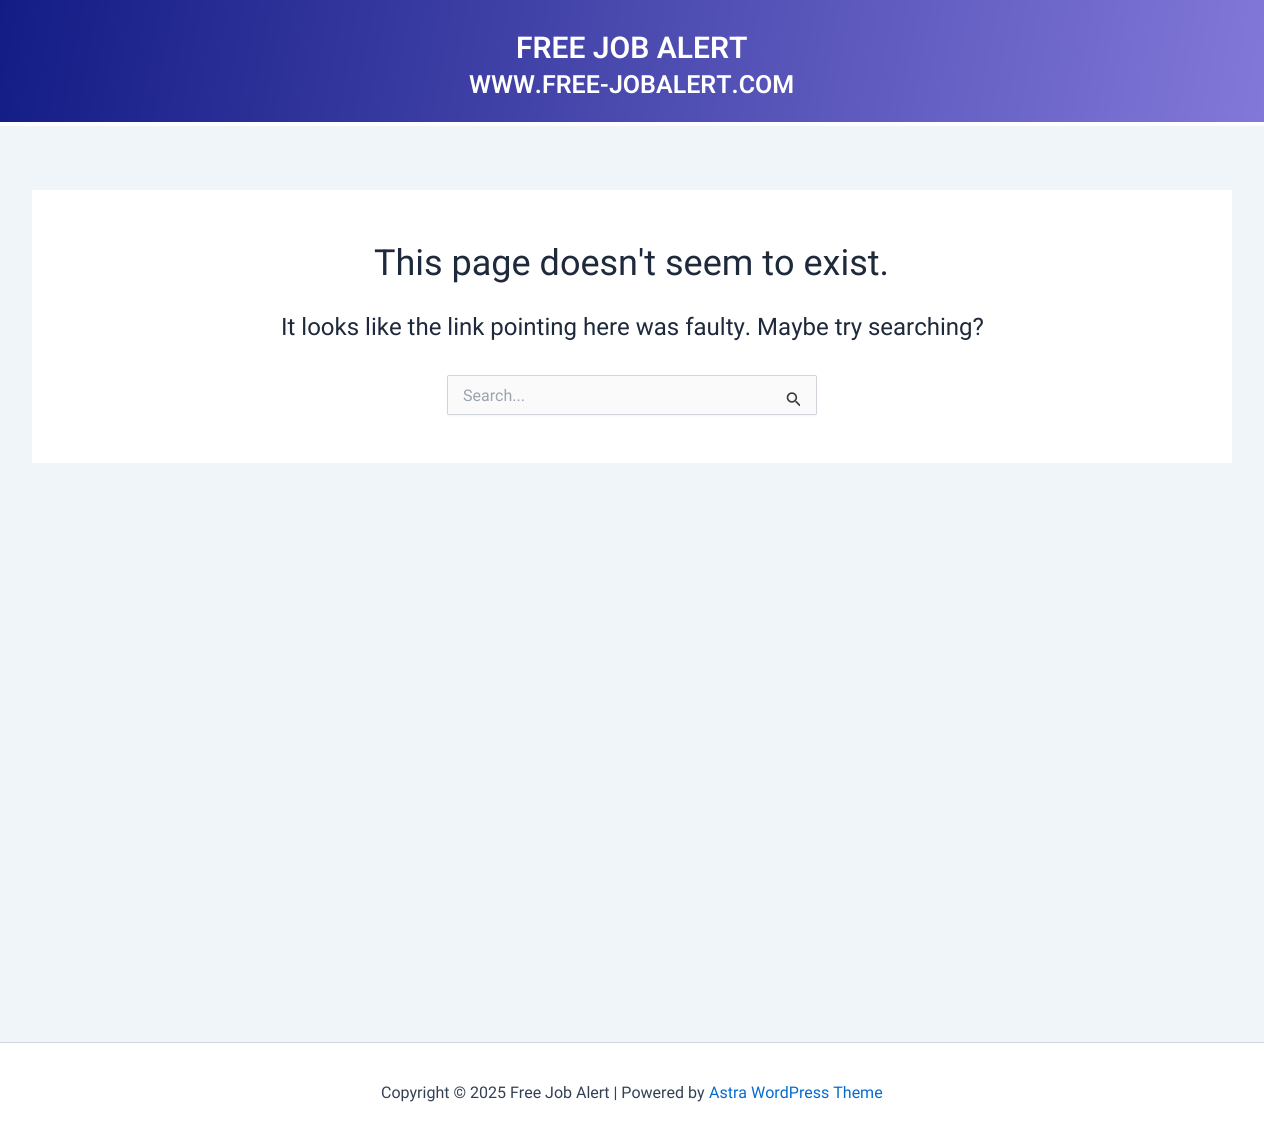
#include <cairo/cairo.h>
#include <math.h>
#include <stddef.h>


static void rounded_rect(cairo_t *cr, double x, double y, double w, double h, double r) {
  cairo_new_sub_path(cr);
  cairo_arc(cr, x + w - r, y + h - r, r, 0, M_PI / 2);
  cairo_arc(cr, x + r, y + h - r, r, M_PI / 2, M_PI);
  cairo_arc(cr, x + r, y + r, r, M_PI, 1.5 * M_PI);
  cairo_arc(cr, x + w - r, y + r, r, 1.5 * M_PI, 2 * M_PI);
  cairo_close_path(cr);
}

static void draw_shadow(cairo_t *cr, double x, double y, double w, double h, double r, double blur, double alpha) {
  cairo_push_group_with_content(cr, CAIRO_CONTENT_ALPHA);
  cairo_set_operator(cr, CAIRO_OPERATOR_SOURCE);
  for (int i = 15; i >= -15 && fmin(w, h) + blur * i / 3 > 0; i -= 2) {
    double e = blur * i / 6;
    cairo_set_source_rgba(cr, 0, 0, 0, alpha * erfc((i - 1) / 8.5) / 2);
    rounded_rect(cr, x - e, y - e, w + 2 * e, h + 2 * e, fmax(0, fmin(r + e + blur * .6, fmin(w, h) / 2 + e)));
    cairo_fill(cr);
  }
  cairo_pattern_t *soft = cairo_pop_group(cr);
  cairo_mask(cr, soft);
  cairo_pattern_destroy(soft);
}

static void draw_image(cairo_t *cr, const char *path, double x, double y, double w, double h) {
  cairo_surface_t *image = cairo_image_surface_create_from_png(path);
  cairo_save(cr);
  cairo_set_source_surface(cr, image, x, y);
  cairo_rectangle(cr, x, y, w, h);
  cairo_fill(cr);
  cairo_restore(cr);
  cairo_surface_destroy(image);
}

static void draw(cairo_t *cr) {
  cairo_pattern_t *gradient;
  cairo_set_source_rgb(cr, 240 / 255.0, 245 / 255.0, 250 / 255.0);
  cairo_paint(cr);
  gradient = cairo_pattern_create_linear(9, -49, 1255, 171);
  cairo_pattern_add_color_stop_rgba(gradient, 0, 19 / 255.0, 28 / 255.0, 133 / 255.0, 1);
  cairo_pattern_add_color_stop_rgba(gradient, 1, 130 / 255.0, 120 / 255.0, 217 / 255.0, 1);
  cairo_set_source(cr, gradient);
  cairo_pattern_destroy(gradient);
  cairo_rectangle(cr, 0, 0, 1264, 122);
  cairo_fill(cr);
  cairo_set_source_rgb(cr, 1, 1, 1);
  cairo_rectangle(cr, 0, 122, 1264, 4);
  cairo_fill(cr);
  cairo_rectangle(cr, 32, 190, 1200, 273);
  cairo_fill(cr);
  cairo_set_source_rgb(cr, 0, 0, 0);
  draw_shadow(cr, 447, 376, 370, 40, 2, 1, 0.05);
  cairo_set_source_rgb(cr, 250 / 255.0, 250 / 255.0, 250 / 255.0);
  rounded_rect(cr, 447.5, 375.5, 369, 39, 1.5);
  cairo_fill_preserve(cr);
  cairo_set_source_rgb(cr, 209 / 255.0, 213 / 255.0, 219 / 255.0);
  cairo_set_line_width(cr, 1);
  cairo_stroke(cr);
  draw_image(cr, "images/1.png", 786, 392, 14, 15);
  cairo_set_source_rgb(cr, 1, 1, 1);
  cairo_rectangle(cr, 0, 1043, 1264, 100);
  cairo_fill(cr);
  cairo_set_source_rgb(cr, 209 / 255.0, 213 / 255.0, 219 / 255.0);
  cairo_rectangle(cr, 0, 1042, 1264, 1);
  cairo_fill(cr);
  cairo_select_font_face(cr, "Roboto SemiBold", CAIRO_FONT_SLANT_NORMAL, CAIRO_FONT_WEIGHT_NORMAL);
  cairo_set_font_size(cr, 30);
  cairo_set_source_rgb(cr, 1, 1, 1);
  cairo_move_to(cr, 516, 58);
  cairo_show_text(cr, "FREE JOB ALERT");
  cairo_set_font_size(cr, 25);
  cairo_move_to(cr, 469, 93);
  cairo_show_text(cr, "WWW.FREE-JOBALERT.COM");
  cairo_select_font_face(cr, "Roboto", CAIRO_FONT_SLANT_NORMAL, CAIRO_FONT_WEIGHT_NORMAL);
  cairo_set_font_size(cr, 36);
  cairo_set_source_rgb(cr, 30 / 255.0, 41 / 255.0, 59 / 255.0);
  cairo_move_to(cr, 374, 275);
  cairo_show_text(cr, "This page doesn't seem to exist.");
  cairo_set_font_size(cr, 24);
  cairo_move_to(cr, 281, 335);
  cairo_show_text(cr, "It looks like the link pointing here was faulty. Maybe try searching?");
  cairo_set_font_size(cr, 16);
  cairo_set_source_rgb(cr, 156 / 255.0, 163 / 255.0, 175 / 255.0);
  cairo_move_to(cr, 463, 401);
  cairo_show_text(cr, "Search...");
  cairo_set_source_rgb(cr, 51 / 255.0, 65 / 255.0, 85 / 255.0);
  cairo_move_to(cr, 381, 1098);
  cairo_show_text(cr, "Copyright © 2025 Free Job Alert | Powered by");
  cairo_set_source_rgb(cr, 4 / 255.0, 107 / 255.0, 210 / 255.0);
  cairo_move_to(cr, 709, 1098);
  cairo_show_text(cr, "Astra WordPress Theme");
}

int main(void) {
  cairo_surface_t *surface = cairo_image_surface_create(CAIRO_FORMAT_RGB24, 1264, 1143);
  cairo_t *cr = cairo_create(surface);
  cairo_font_options_t *options = cairo_font_options_create();
  cairo_font_options_set_hint_metrics(options, CAIRO_HINT_METRICS_OFF);
  cairo_font_options_set_hint_style(options, CAIRO_HINT_STYLE_NONE);
  cairo_set_font_options(cr, options);
  cairo_set_miter_limit(cr, 4);
  draw(cr);
  cairo_surface_write_to_png(surface, "out.png");
  cairo_font_options_destroy(options);
  cairo_destroy(cr);
  cairo_surface_destroy(surface);
  return 0;
}
